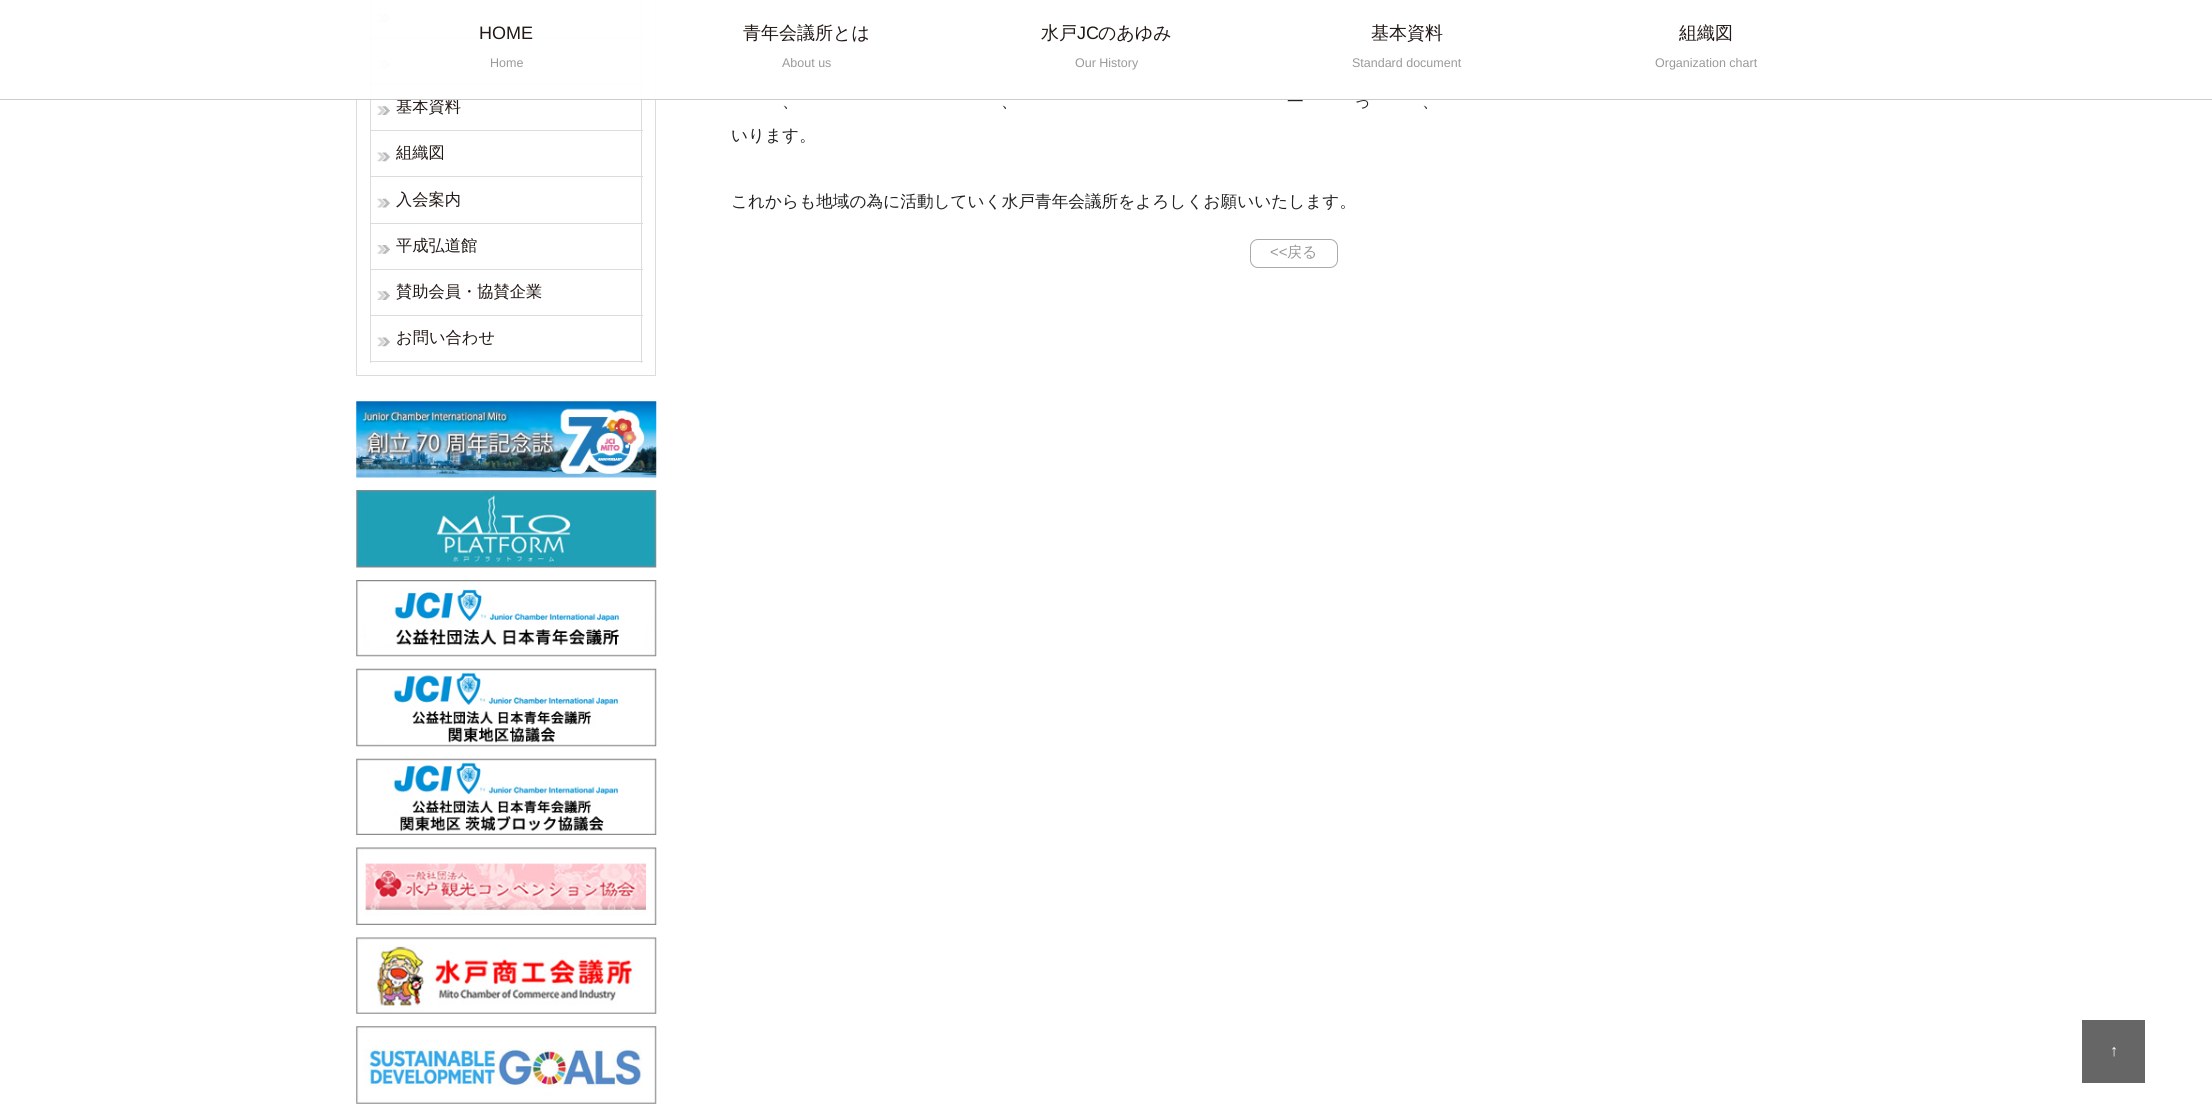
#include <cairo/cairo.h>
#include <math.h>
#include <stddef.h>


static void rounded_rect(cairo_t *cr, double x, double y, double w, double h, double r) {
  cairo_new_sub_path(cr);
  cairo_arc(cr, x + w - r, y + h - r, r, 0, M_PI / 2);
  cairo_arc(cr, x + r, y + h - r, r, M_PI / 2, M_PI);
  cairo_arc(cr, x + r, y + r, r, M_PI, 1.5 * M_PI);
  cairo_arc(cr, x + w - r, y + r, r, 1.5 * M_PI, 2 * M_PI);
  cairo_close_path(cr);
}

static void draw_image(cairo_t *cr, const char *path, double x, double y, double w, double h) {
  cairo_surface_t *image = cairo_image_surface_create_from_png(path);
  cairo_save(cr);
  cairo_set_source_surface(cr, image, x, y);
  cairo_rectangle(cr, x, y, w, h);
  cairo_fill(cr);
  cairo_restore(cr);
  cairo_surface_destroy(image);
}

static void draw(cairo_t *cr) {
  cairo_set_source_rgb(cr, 1, 1, 1);
  cairo_paint(cr);
  cairo_rectangle(cr, 356.5, -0.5, 299, 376);
  cairo_set_source_rgb(cr, 220 / 255.0, 220 / 255.0, 220 / 255.0);
  cairo_set_line_width(cr, 1);
  cairo_stroke(cr);
  draw_image(cr, "images/1.png", 377, 13, 13, 10);
  cairo_rectangle(cr, 641, 0, 1, 363);
  cairo_fill(cr);
  cairo_rectangle(cr, 370, 38, 273, 1);
  cairo_fill(cr);
  cairo_rectangle(cr, 370, 0, 1, 39);
  cairo_fill(cr);
  draw_image(cr, "images/2.png", 377, 60, 13, 9);
  cairo_rectangle(cr, 370, 84, 273, 1);
  cairo_fill(cr);
  cairo_rectangle(cr, 370, 39, 1, 46);
  cairo_fill(cr);
  draw_image(cr, "images/3.png", 377, 106, 13, 9);
  cairo_rectangle(cr, 370, 130, 273, 1);
  cairo_fill(cr);
  cairo_rectangle(cr, 370, 85, 1, 46);
  cairo_fill(cr);
  draw_image(cr, "images/4.png", 377, 152, 13, 10);
  cairo_rectangle(cr, 370, 176, 273, 1);
  cairo_fill(cr);
  cairo_rectangle(cr, 370, 131, 1, 47);
  cairo_fill(cr);
  draw_image(cr, "images/1.png", 377, 198, 13, 10);
  cairo_rectangle(cr, 370, 223, 273, 1);
  cairo_fill(cr);
  cairo_rectangle(cr, 370, 178, 1, 46);
  cairo_fill(cr);
  draw_image(cr, "images/2.png", 377, 245, 13, 9);
  cairo_rectangle(cr, 370, 269, 273, 1);
  cairo_fill(cr);
  cairo_rectangle(cr, 370, 224, 1, 46);
  cairo_fill(cr);
  draw_image(cr, "images/3.png", 377, 291, 13, 9);
  cairo_rectangle(cr, 370, 315, 273, 1);
  cairo_fill(cr);
  cairo_rectangle(cr, 370, 270, 1, 46);
  cairo_fill(cr);
  draw_image(cr, "images/4.png", 377, 337, 13, 10);
  cairo_rectangle(cr, 370, 361, 273, 1);
  cairo_fill(cr);
  cairo_rectangle(cr, 370, 316, 1, 47);
  cairo_fill(cr);
  draw_image(cr, "images/5.png", 356, 401, 301, 77);
  draw_image(cr, "images/6.png", 356, 490, 301, 78);
  draw_image(cr, "images/7.png", 356, 580, 301, 77);
  draw_image(cr, "images/8.png", 356, 668, 301, 79);
  draw_image(cr, "images/9.png", 356, 758, 301, 77);
  draw_image(cr, "images/10.png", 356, 847, 301, 78);
  draw_image(cr, "images/11.png", 356, 937, 301, 77);
  draw_image(cr, "images/12.png", 356, 1026, 301, 78);
  rounded_rect(cr, 1250.5, 239.5, 87, 28, 7.5);
  cairo_set_source_rgb(cr, 170 / 255.0, 170 / 255.0, 170 / 255.0);
  cairo_stroke(cr);
  cairo_set_source_rgb(cr, 102 / 255.0, 102 / 255.0, 102 / 255.0);
  cairo_rectangle(cr, 2082, 1020, 63, 63);
  cairo_fill(cr);
  cairo_select_font_face(cr, "WenQuanYi Zen Hei Medium", CAIRO_FONT_SLANT_NORMAL, CAIRO_FONT_WEIGHT_NORMAL);
  cairo_set_font_size(cr, 18);
  cairo_set_source_rgb(cr, 34 / 255.0, 24 / 255.0, 21 / 255.0);
  cairo_move_to(cr, 743, 39);
  cairo_show_text(cr, "青年会議所とは");
  cairo_select_font_face(cr, "Liberation Sans", CAIRO_FONT_SLANT_NORMAL, CAIRO_FONT_WEIGHT_NORMAL);
  cairo_set_font_size(cr, 12.5);
  cairo_set_source_rgb(cr, 153 / 255.0, 153 / 255.0, 153 / 255.0);
  cairo_move_to(cr, 782, 67);
  cairo_show_text(cr, "About us");
  cairo_select_font_face(cr, "WenQuanYi Zen Hei Medium", CAIRO_FONT_SLANT_NORMAL, CAIRO_FONT_WEIGHT_NORMAL);
  cairo_set_font_size(cr, 18);
  cairo_set_source_rgb(cr, 34 / 255.0, 24 / 255.0, 21 / 255.0);
  cairo_move_to(cr, 1041, 39);
  cairo_show_text(cr, "水戸");
  cairo_select_font_face(cr, "Liberation Sans", CAIRO_FONT_SLANT_NORMAL, CAIRO_FONT_WEIGHT_NORMAL);
  cairo_move_to(cr, 1077, 39);
  cairo_show_text(cr, "JC");
  cairo_select_font_face(cr, "WenQuanYi Zen Hei Medium", CAIRO_FONT_SLANT_NORMAL, CAIRO_FONT_WEIGHT_NORMAL);
  cairo_move_to(cr, 1098, 39);
  cairo_show_text(cr, "のあゆみ");
  cairo_select_font_face(cr, "Liberation Sans", CAIRO_FONT_SLANT_NORMAL, CAIRO_FONT_WEIGHT_NORMAL);
  cairo_set_font_size(cr, 12.5);
  cairo_set_source_rgb(cr, 153 / 255.0, 153 / 255.0, 153 / 255.0);
  cairo_move_to(cr, 1075, 67);
  cairo_show_text(cr, "Our History");
  cairo_select_font_face(cr, "WenQuanYi Zen Hei Medium", CAIRO_FONT_SLANT_NORMAL, CAIRO_FONT_WEIGHT_NORMAL);
  cairo_set_font_size(cr, 18);
  cairo_set_source_rgb(cr, 34 / 255.0, 24 / 255.0, 21 / 255.0);
  cairo_move_to(cr, 1371, 39);
  cairo_show_text(cr, "基本資料");
  cairo_select_font_face(cr, "Liberation Sans", CAIRO_FONT_SLANT_NORMAL, CAIRO_FONT_WEIGHT_NORMAL);
  cairo_set_font_size(cr, 12.5);
  cairo_set_source_rgb(cr, 153 / 255.0, 153 / 255.0, 153 / 255.0);
  cairo_move_to(cr, 1352, 67);
  cairo_show_text(cr, "Standard document");
  cairo_select_font_face(cr, "WenQuanYi Zen Hei Medium", CAIRO_FONT_SLANT_NORMAL, CAIRO_FONT_WEIGHT_NORMAL);
  cairo_set_font_size(cr, 18);
  cairo_set_source_rgb(cr, 34 / 255.0, 24 / 255.0, 21 / 255.0);
  cairo_move_to(cr, 1679, 39);
  cairo_show_text(cr, "組織図");
  cairo_select_font_face(cr, "Liberation Sans", CAIRO_FONT_SLANT_NORMAL, CAIRO_FONT_WEIGHT_NORMAL);
  cairo_set_font_size(cr, 12.5);
  cairo_set_source_rgb(cr, 153 / 255.0, 153 / 255.0, 153 / 255.0);
  cairo_move_to(cr, 1655, 67);
  cairo_show_text(cr, "Organization chart");
  cairo_select_font_face(cr, "WenQuanYi Zen Hei Medium", CAIRO_FONT_SLANT_NORMAL, CAIRO_FONT_WEIGHT_NORMAL);
  cairo_set_font_size(cr, 16.25);
  cairo_set_source_rgb(cr, 34 / 255.0, 24 / 255.0, 21 / 255.0);
  cairo_move_to(cr, 396, 112);
  cairo_show_text(cr, "基本資料");
  cairo_set_source_rgba(cr, 1, 1, 1, 0.95);
  cairo_rectangle(cr, 356, 0, 300, 99);
  cairo_fill(cr);
  cairo_select_font_face(cr, "Liberation Sans", CAIRO_FONT_SLANT_NORMAL, CAIRO_FONT_WEIGHT_NORMAL);
  cairo_set_font_size(cr, 12.5);
  cairo_set_source_rgb(cr, 153 / 255.0, 153 / 255.0, 153 / 255.0);
  cairo_move_to(cr, 490, 67);
  cairo_show_text(cr, "Home");
  cairo_set_font_size(cr, 18);
  cairo_set_source_rgb(cr, 34 / 255.0, 24 / 255.0, 21 / 255.0);
  cairo_move_to(cr, 479, 39);
  cairo_show_text(cr, "HOME");
  cairo_select_font_face(cr, "WenQuanYi Zen Hei Medium", CAIRO_FONT_SLANT_NORMAL, CAIRO_FONT_WEIGHT_NORMAL);
  cairo_set_font_size(cr, 16.25);
  cairo_move_to(cr, 396, 158);
  cairo_show_text(cr, "組織図");
  cairo_move_to(cr, 396, 205);
  cairo_show_text(cr, "入会案内");
  cairo_move_to(cr, 396, 251);
  cairo_show_text(cr, "平成弘道館");
  cairo_move_to(cr, 396, 297);
  cairo_show_text(cr, "賛助会員・協賛企業");
  cairo_move_to(cr, 396, 343);
  cairo_show_text(cr, "お問い合わせ");
  cairo_set_font_size(cr, 16.65);
  cairo_set_source_rgb(cr, 34 / 255.0, 34 / 255.0, 34 / 255.0);
  cairo_move_to(cr, 782, 107);
  cairo_show_text(cr, "、");
  cairo_move_to(cr, 1001, 107);
  cairo_show_text(cr, "、");
  cairo_move_to(cr, 1287, 107);
  cairo_show_text(cr, "一");
  cairo_set_source_rgb(cr, 204 / 255.0, 204 / 255.0, 204 / 255.0);
  cairo_rectangle(cr, 0, 99, 2212, 1);
  cairo_fill(cr);
  cairo_set_source_rgb(cr, 34 / 255.0, 34 / 255.0, 34 / 255.0);
  cairo_move_to(cr, 1354, 107);
  cairo_show_text(cr, "っ");
  cairo_move_to(cr, 1422, 107);
  cairo_show_text(cr, "、");
  cairo_move_to(cr, 731, 141);
  cairo_show_text(cr, "いります。");
  cairo_move_to(cr, 731, 207);
  cairo_show_text(cr, "これからも地域の為に活動していく水戸青年会議所をよろしくお願いいたします。");
  cairo_select_font_face(cr, "Liberation Sans", CAIRO_FONT_SLANT_NORMAL, CAIRO_FONT_WEIGHT_NORMAL);
  cairo_set_font_size(cr, 15);
  cairo_set_source_rgb(cr, 153 / 255.0, 153 / 255.0, 153 / 255.0);
  cairo_move_to(cr, 1270, 257);
  cairo_show_text(cr, "<<");
  cairo_select_font_face(cr, "WenQuanYi Zen Hei Medium", CAIRO_FONT_SLANT_NORMAL, CAIRO_FONT_WEIGHT_NORMAL);
  cairo_move_to(cr, 1287, 257);
  cairo_show_text(cr, "戻る");
  cairo_select_font_face(cr, "Liberation Sans", CAIRO_FONT_SLANT_NORMAL, CAIRO_FONT_WEIGHT_NORMAL);
  cairo_set_font_size(cr, 16.25);
  cairo_set_source_rgb(cr, 1, 1, 1);
  cairo_move_to(cr, 2110, 1056);
  cairo_show_text(cr, "↑");
}

int main(void) {
  cairo_surface_t *surface = cairo_image_surface_create(CAIRO_FORMAT_RGB24, 2212, 1108);
  cairo_t *cr = cairo_create(surface);
  cairo_font_options_t *options = cairo_font_options_create();
  cairo_font_options_set_hint_metrics(options, CAIRO_HINT_METRICS_OFF);
  cairo_font_options_set_hint_style(options, CAIRO_HINT_STYLE_NONE);
  cairo_set_font_options(cr, options);
  cairo_set_miter_limit(cr, 4);
  draw(cr);
  cairo_surface_write_to_png(surface, "out.png");
  cairo_font_options_destroy(options);
  cairo_destroy(cr);
  cairo_surface_destroy(surface);
  return 0;
}
